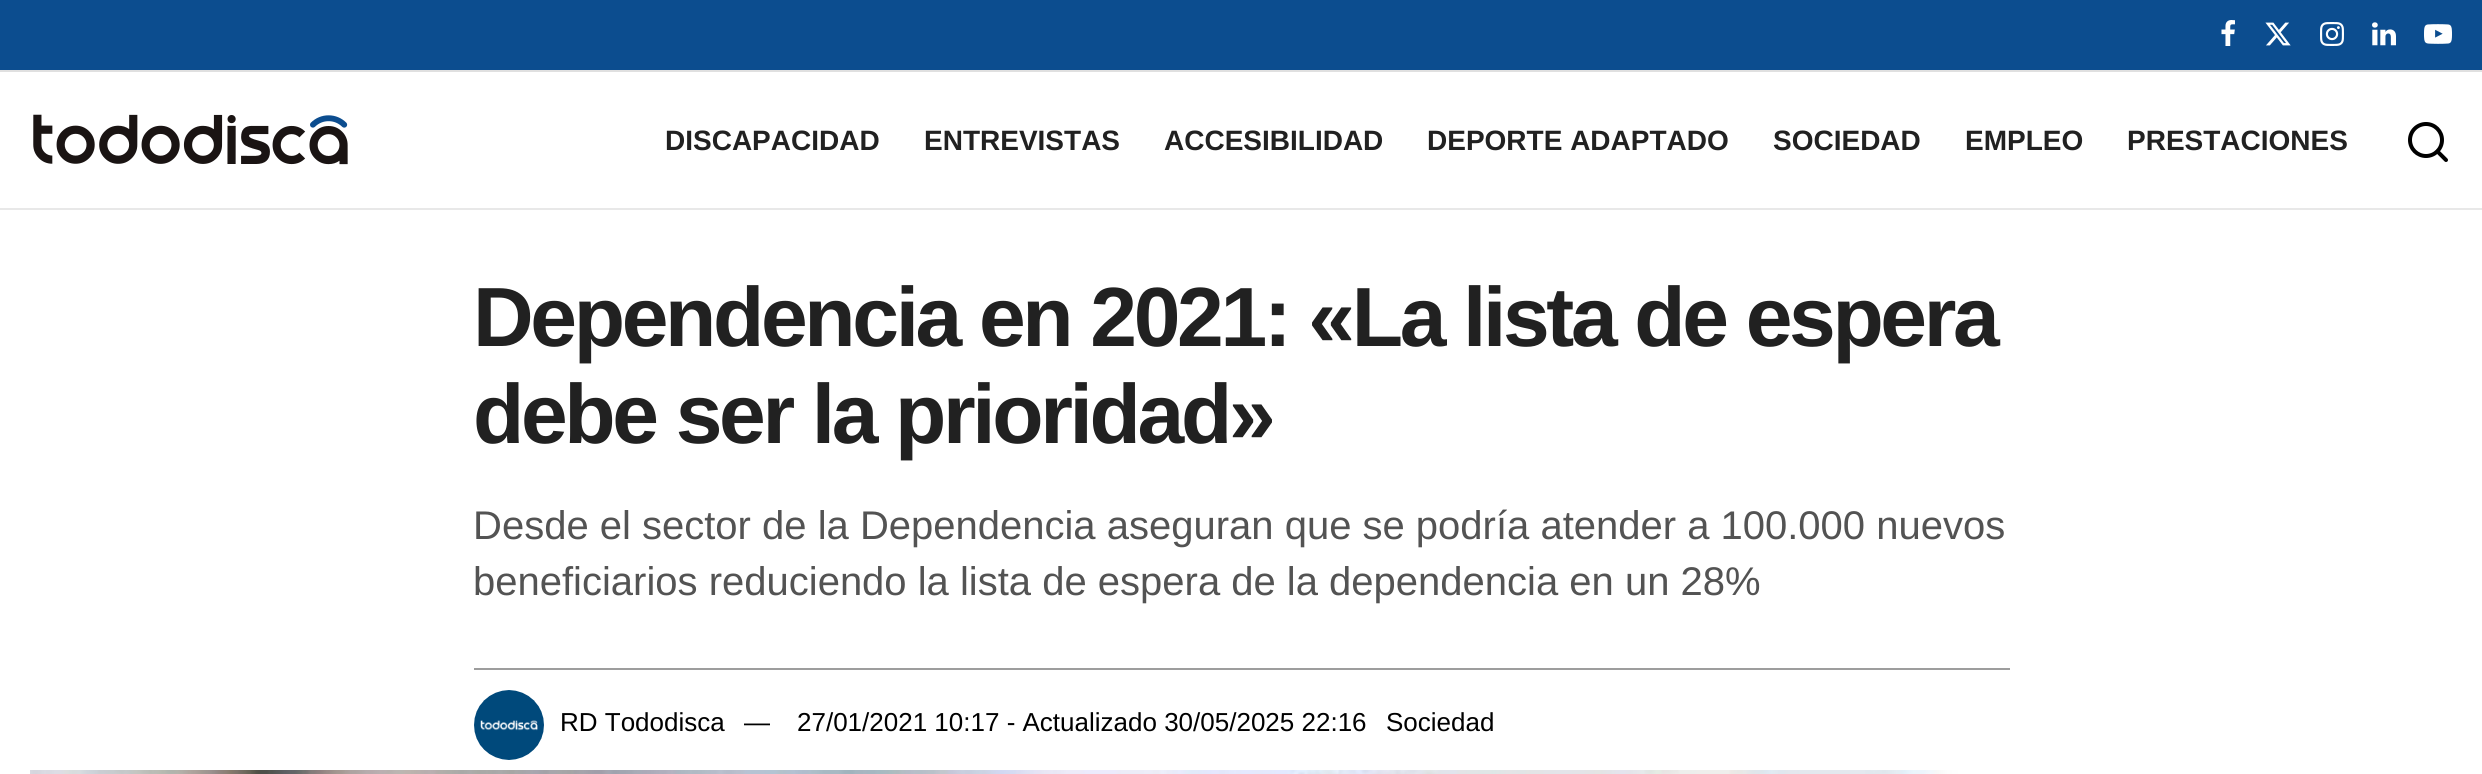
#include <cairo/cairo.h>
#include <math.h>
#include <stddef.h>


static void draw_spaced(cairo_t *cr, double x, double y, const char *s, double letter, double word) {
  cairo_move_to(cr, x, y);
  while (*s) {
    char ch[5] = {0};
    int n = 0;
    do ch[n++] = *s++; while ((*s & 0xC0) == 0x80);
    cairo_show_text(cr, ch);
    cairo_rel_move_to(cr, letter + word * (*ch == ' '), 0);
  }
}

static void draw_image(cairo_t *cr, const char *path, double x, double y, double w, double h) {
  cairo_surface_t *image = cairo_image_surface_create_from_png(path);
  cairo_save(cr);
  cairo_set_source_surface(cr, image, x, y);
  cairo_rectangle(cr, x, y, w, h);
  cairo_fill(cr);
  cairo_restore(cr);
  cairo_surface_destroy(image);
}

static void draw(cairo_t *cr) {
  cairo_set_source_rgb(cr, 1, 1, 1);
  cairo_paint(cr);
  cairo_set_source_rgb(cr, 12 / 255.0, 77 / 255.0, 143 / 255.0);
  cairo_rectangle(cr, 0, 0, 2482, 70);
  cairo_fill(cr);
  cairo_set_source_rgb(cr, 224 / 255.0, 224 / 255.0, 224 / 255.0);
  cairo_rectangle(cr, 0, 70, 2482, 2);
  cairo_fill(cr);
  draw_image(cr, "images/1.png", 2221, 20, 14, 26);
  draw_image(cr, "images/2.png", 2265, 22, 26, 24);
  draw_image(cr, "images/3.png", 2320, 22, 24, 24);
  draw_image(cr, "images/4.png", 2372, 22, 24, 24);
  draw_image(cr, "images/5.png", 2424, 24, 28, 20);
  cairo_set_source_rgb(cr, 232 / 255.0, 232 / 255.0, 232 / 255.0);
  cairo_rectangle(cr, 0, 208, 2482, 2);
  cairo_fill(cr);
  draw_image(cr, "images/6.png", 33, 114, 315, 51);
  cairo_arc(cr, 2426, 140, 16, 0, 2 * M_PI);
  cairo_set_source_rgb(cr, 0, 0, 0);
  cairo_set_line_width(cr, 4);
  cairo_stroke(cr);
  cairo_new_path(cr);
  cairo_move_to(cr, 2446, 160);
  cairo_line_to(cr, 2437.5, 151.5);
  cairo_set_line_cap(cr, CAIRO_LINE_CAP_ROUND);
  cairo_set_line_join(cr, CAIRO_LINE_JOIN_ROUND);
  cairo_stroke(cr);
  cairo_set_source_rgb(cr, 157 / 255.0, 157 / 255.0, 157 / 255.0);
  cairo_rectangle(cr, 474, 668, 1536, 2);
  cairo_fill(cr);
  draw_image(cr, "images/7.png", 474, 690, 70, 70);
  draw_image(cr, "images/8.png", 30, 770, 2422, 4);
  cairo_select_font_face(cr, "Liberation Sans", CAIRO_FONT_SLANT_NORMAL, CAIRO_FONT_WEIGHT_BOLD);
  cairo_set_font_size(cr, 28);
  cairo_set_source_rgb(cr, 33 / 255.0, 33 / 255.0, 33 / 255.0);
  cairo_move_to(cr, 665, 150);
  cairo_show_text(cr, "DISCAPACIDAD");
  cairo_move_to(cr, 924, 150);
  cairo_show_text(cr, "ENTREVISTAS");
  cairo_move_to(cr, 1164, 150);
  cairo_show_text(cr, "ACCESIBILIDAD");
  cairo_move_to(cr, 1427, 150);
  cairo_show_text(cr, "DEPORTE ADAPTADO");
  cairo_move_to(cr, 1773, 150);
  cairo_show_text(cr, "SOCIEDAD");
  cairo_move_to(cr, 1965, 150);
  cairo_show_text(cr, "EMPLEO");
  cairo_move_to(cr, 2127, 150);
  cairo_show_text(cr, "PRESTACIONES");
  cairo_set_font_size(cr, 84);
  draw_spaced(cr, 473, 346, "Dependencia en 2021: «La lista de espera", -3.35, 0);
  draw_spaced(cr, 473, 443, "debe ser la prioridad»", -3.35, 0);
  cairo_select_font_face(cr, "Liberation Sans", CAIRO_FONT_SLANT_NORMAL, CAIRO_FONT_WEIGHT_NORMAL);
  cairo_set_font_size(cr, 40);
  cairo_set_source_rgb(cr, 83 / 255.0, 83 / 255.0, 83 / 255.0);
  cairo_move_to(cr, 473, 539);
  cairo_show_text(cr, "Desde el sector de la Dependencia aseguran que se podría atender a 100.000 nuevos");
  cairo_move_to(cr, 473, 595);
  cairo_show_text(cr, "beneficiarios reduciendo la lista de espera de la dependencia en un 28%");
  cairo_set_font_size(cr, 26);
  cairo_set_source_rgb(cr, 0, 0, 0);
  cairo_move_to(cr, 560, 731);
  cairo_show_text(cr, "RD Tododisca");
  cairo_move_to(cr, 744, 731);
  cairo_show_text(cr, "—");
  cairo_move_to(cr, 797, 731);
  cairo_show_text(cr, "27/01/2021 10:17 - Actualizado 30/05/2025 22:16");
  cairo_move_to(cr, 1386, 731);
  cairo_show_text(cr, "Sociedad");
}

int main(void) {
  cairo_surface_t *surface = cairo_image_surface_create(CAIRO_FORMAT_RGB24, 2482, 774);
  cairo_t *cr = cairo_create(surface);
  cairo_font_options_t *options = cairo_font_options_create();
  cairo_font_options_set_hint_metrics(options, CAIRO_HINT_METRICS_OFF);
  cairo_font_options_set_hint_style(options, CAIRO_HINT_STYLE_NONE);
  cairo_set_font_options(cr, options);
  cairo_set_miter_limit(cr, 4);
  draw(cr);
  cairo_surface_write_to_png(surface, "out.png");
  cairo_font_options_destroy(options);
  cairo_destroy(cr);
  cairo_surface_destroy(surface);
  return 0;
}
